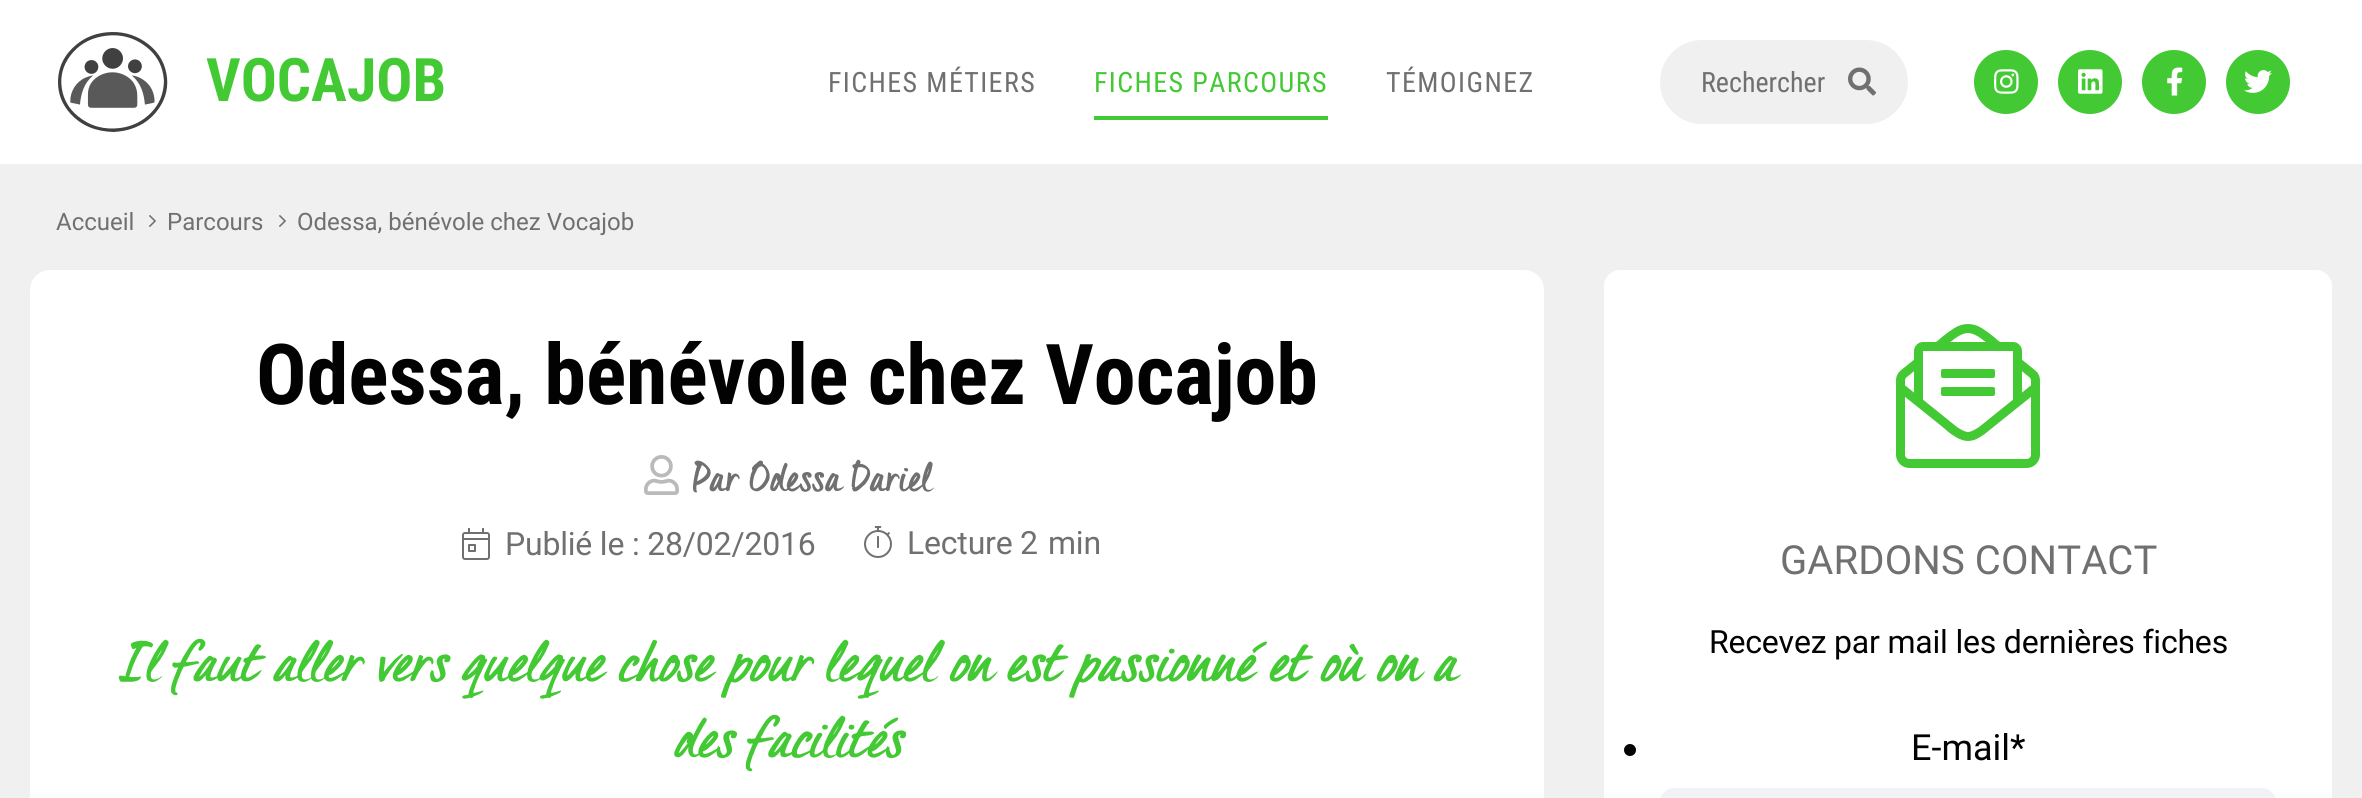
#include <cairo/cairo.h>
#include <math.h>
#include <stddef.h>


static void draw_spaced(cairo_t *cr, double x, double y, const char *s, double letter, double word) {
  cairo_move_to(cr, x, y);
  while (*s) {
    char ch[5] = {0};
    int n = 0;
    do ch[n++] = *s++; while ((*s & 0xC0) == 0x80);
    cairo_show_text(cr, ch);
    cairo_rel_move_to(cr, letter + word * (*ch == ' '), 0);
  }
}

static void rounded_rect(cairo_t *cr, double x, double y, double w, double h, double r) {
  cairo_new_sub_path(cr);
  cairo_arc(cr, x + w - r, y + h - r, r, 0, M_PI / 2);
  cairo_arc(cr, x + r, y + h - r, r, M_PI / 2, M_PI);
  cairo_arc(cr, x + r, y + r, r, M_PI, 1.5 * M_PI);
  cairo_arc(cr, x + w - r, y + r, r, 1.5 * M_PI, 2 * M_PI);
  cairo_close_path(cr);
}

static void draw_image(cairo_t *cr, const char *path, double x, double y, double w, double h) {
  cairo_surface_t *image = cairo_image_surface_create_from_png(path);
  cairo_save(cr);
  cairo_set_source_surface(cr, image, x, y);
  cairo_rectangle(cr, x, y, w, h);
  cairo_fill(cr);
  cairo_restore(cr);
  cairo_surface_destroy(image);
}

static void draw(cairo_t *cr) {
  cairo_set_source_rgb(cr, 240 / 255.0, 240 / 255.0, 240 / 255.0);
  cairo_paint(cr);
  cairo_set_source_rgb(cr, 1, 1, 1);
  cairo_rectangle(cr, 0, 0, 2362, 164);
  cairo_fill(cr);
  draw_image(cr, "images/1.png", 58, 32, 110, 100);
  cairo_set_source_rgb(cr, 67 / 255.0, 201 / 255.0, 52 / 255.0);
  cairo_rectangle(cr, 1094, 116, 234, 4);
  cairo_fill(cr);
  cairo_set_source_rgb(cr, 240 / 255.0, 240 / 255.0, 240 / 255.0);
  rounded_rect(cr, 1660, 40, 248, 84, 42);
  cairo_fill(cr);
  draw_image(cr, "images/2.png", 1848, 67, 28, 29);
  cairo_set_source_rgb(cr, 67 / 255.0, 201 / 255.0, 52 / 255.0);
  cairo_arc(cr, 2006, 82, 31, 0, 2 * M_PI);
  cairo_fill_preserve(cr);
  cairo_stroke(cr);
  draw_image(cr, "images/3.png", 1994, 69, 25, 25);
  cairo_arc(cr, 2090, 82, 31, 0, 2 * M_PI);
  cairo_fill_preserve(cr);
  cairo_stroke(cr);
  draw_image(cr, "images/4.png", 2078, 69, 25, 25);
  cairo_arc(cr, 2174, 82, 31, 0, 2 * M_PI);
  cairo_fill_preserve(cr);
  cairo_stroke(cr);
  draw_image(cr, "images/5.png", 2167, 67, 16, 29);
  cairo_arc(cr, 2258, 82, 31, 0, 2 * M_PI);
  cairo_fill_preserve(cr);
  cairo_stroke(cr);
  draw_image(cr, "images/6.png", 2244, 70, 28, 23);
  draw_image(cr, "images/7.png", 149, 215, 7, 12);
  draw_image(cr, "images/7.png", 279, 215, 7, 12);
  cairo_set_source_rgb(cr, 1, 1, 1);
  rounded_rect(cr, 30, 270, 1514, 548, 20);
  cairo_fill(cr);
  draw_image(cr, "images/8.png", 644, 455, 35, 40);
  draw_image(cr, "images/9.png", 462, 528, 28, 32);
  draw_image(cr, "images/10.png", 864, 526, 28, 32);
  rounded_rect(cr, 1604, 270, 728, 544, 16);
  cairo_fill(cr);
  draw_image(cr, "images/11.png", 1896, 324, 144, 144);
  cairo_set_source_rgb(cr, 2 / 255.0, 2 / 255.0, 2 / 255.0);
  cairo_arc(cr, 1630, 750, 6, 0, 2 * M_PI);
  cairo_fill(cr);
  cairo_set_source_rgb(cr, 240 / 255.0, 242 / 255.0, 245 / 255.0);
  rounded_rect(cr, 1660, 788, 616, 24, 14);
  cairo_fill(cr);
  cairo_select_font_face(cr, "Roboto Condensed", CAIRO_FONT_SLANT_NORMAL, CAIRO_FONT_WEIGHT_BOLD);
  cairo_set_font_size(cr, 60);
  cairo_set_source_rgb(cr, 67 / 255.0, 201 / 255.0, 52 / 255.0);
  cairo_move_to(cr, 206, 101);
  cairo_show_text(cr, "VOCAJOB");
  cairo_select_font_face(cr, "Roboto Condensed", CAIRO_FONT_SLANT_NORMAL, CAIRO_FONT_WEIGHT_NORMAL);
  cairo_set_font_size(cr, 28);
  cairo_set_source_rgb(cr, 112 / 255.0, 112 / 255.0, 112 / 255.0);
  draw_spaced(cr, 828, 92, "FICHES MÉTIERS", 1.4, 0);
  cairo_set_source_rgb(cr, 67 / 255.0, 201 / 255.0, 52 / 255.0);
  draw_spaced(cr, 1094, 92, "FICHES PARCOURS", 1.4, 0);
  cairo_set_source_rgb(cr, 112 / 255.0, 112 / 255.0, 112 / 255.0);
  draw_spaced(cr, 1386, 92, "TÉMOIGNEZ", 1.4, 0);
  cairo_move_to(cr, 1701, 92);
  cairo_show_text(cr, "Rechercher");
  cairo_select_font_face(cr, "Roboto", CAIRO_FONT_SLANT_NORMAL, CAIRO_FONT_WEIGHT_NORMAL);
  cairo_set_font_size(cr, 24);
  cairo_move_to(cr, 56, 230);
  cairo_show_text(cr, "Accueil");
  cairo_move_to(cr, 167, 230);
  cairo_show_text(cr, "Parcours");
  cairo_move_to(cr, 297, 230);
  cairo_show_text(cr, "Odessa, bénévole chez Vocajob");
  cairo_select_font_face(cr, "Roboto Condensed", CAIRO_FONT_SLANT_NORMAL, CAIRO_FONT_WEIGHT_BOLD);
  cairo_set_font_size(cr, 84);
  cairo_set_source_rgb(cr, 2 / 255.0, 2 / 255.0, 2 / 255.0);
  cairo_move_to(cr, 256, 404);
  cairo_show_text(cr, "Odessa, bénévole chez Vocajob");
  cairo_select_font_face(cr, "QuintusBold", CAIRO_FONT_SLANT_NORMAL, CAIRO_FONT_WEIGHT_BOLD);
  cairo_set_font_size(cr, 40);
  cairo_set_source_rgb(cr, 112 / 255.0, 112 / 255.0, 112 / 255.0);
  cairo_move_to(cr, 693, 491);
  cairo_show_text(cr, "Par Odessa Dariel");
  cairo_select_font_face(cr, "Roboto", CAIRO_FONT_SLANT_NORMAL, CAIRO_FONT_WEIGHT_NORMAL);
  cairo_set_font_size(cr, 32);
  draw_spaced(cr, 505, 555, "Publié le : 28/02/2016", -0.2, 0);
  draw_spaced(cr, 907, 554, "Lecture", -0.2, 0);
  draw_spaced(cr, 1020, 554, "2", -0.2, 0);
  draw_spaced(cr, 1048, 554, "min", -0.2, 0);
  cairo_select_font_face(cr, "QuintusBold", CAIRO_FONT_SLANT_ITALIC, CAIRO_FONT_WEIGHT_BOLD);
  cairo_set_font_size(cr, 56);
  cairo_set_source_rgb(cr, 67 / 255.0, 201 / 255.0, 52 / 255.0);
  cairo_move_to(cr, 118, 681);
  cairo_show_text(cr, "Il faut aller vers quelque chose pour lequel on est passionné et où on a");
  cairo_move_to(cr, 673, 757);
  cairo_show_text(cr, "des facilités");
  cairo_select_font_face(cr, "Roboto", CAIRO_FONT_SLANT_NORMAL, CAIRO_FONT_WEIGHT_NORMAL);
  cairo_set_font_size(cr, 40);
  cairo_set_source_rgb(cr, 112 / 255.0, 112 / 255.0, 112 / 255.0);
  draw_spaced(cr, 1780, 574, "GARDONS CONTACT", 0.1, 0);
  cairo_set_font_size(cr, 32);
  cairo_set_source_rgb(cr, 2 / 255.0, 2 / 255.0, 2 / 255.0);
  draw_spaced(cr, 1709, 653, "Recevez par mail les dernières fiches", -0.2, 0);
  cairo_set_font_size(cr, 36);
  cairo_move_to(cr, 1911, 760);
  cairo_show_text(cr, "E-mail*");
}

int main(void) {
  cairo_surface_t *surface = cairo_image_surface_create(CAIRO_FORMAT_RGB24, 2362, 798);
  cairo_t *cr = cairo_create(surface);
  cairo_font_options_t *options = cairo_font_options_create();
  cairo_font_options_set_hint_metrics(options, CAIRO_HINT_METRICS_OFF);
  cairo_font_options_set_hint_style(options, CAIRO_HINT_STYLE_NONE);
  cairo_set_font_options(cr, options);
  cairo_set_miter_limit(cr, 4);
  draw(cr);
  cairo_surface_write_to_png(surface, "out.png");
  cairo_font_options_destroy(options);
  cairo_destroy(cr);
  cairo_surface_destroy(surface);
  return 0;
}
